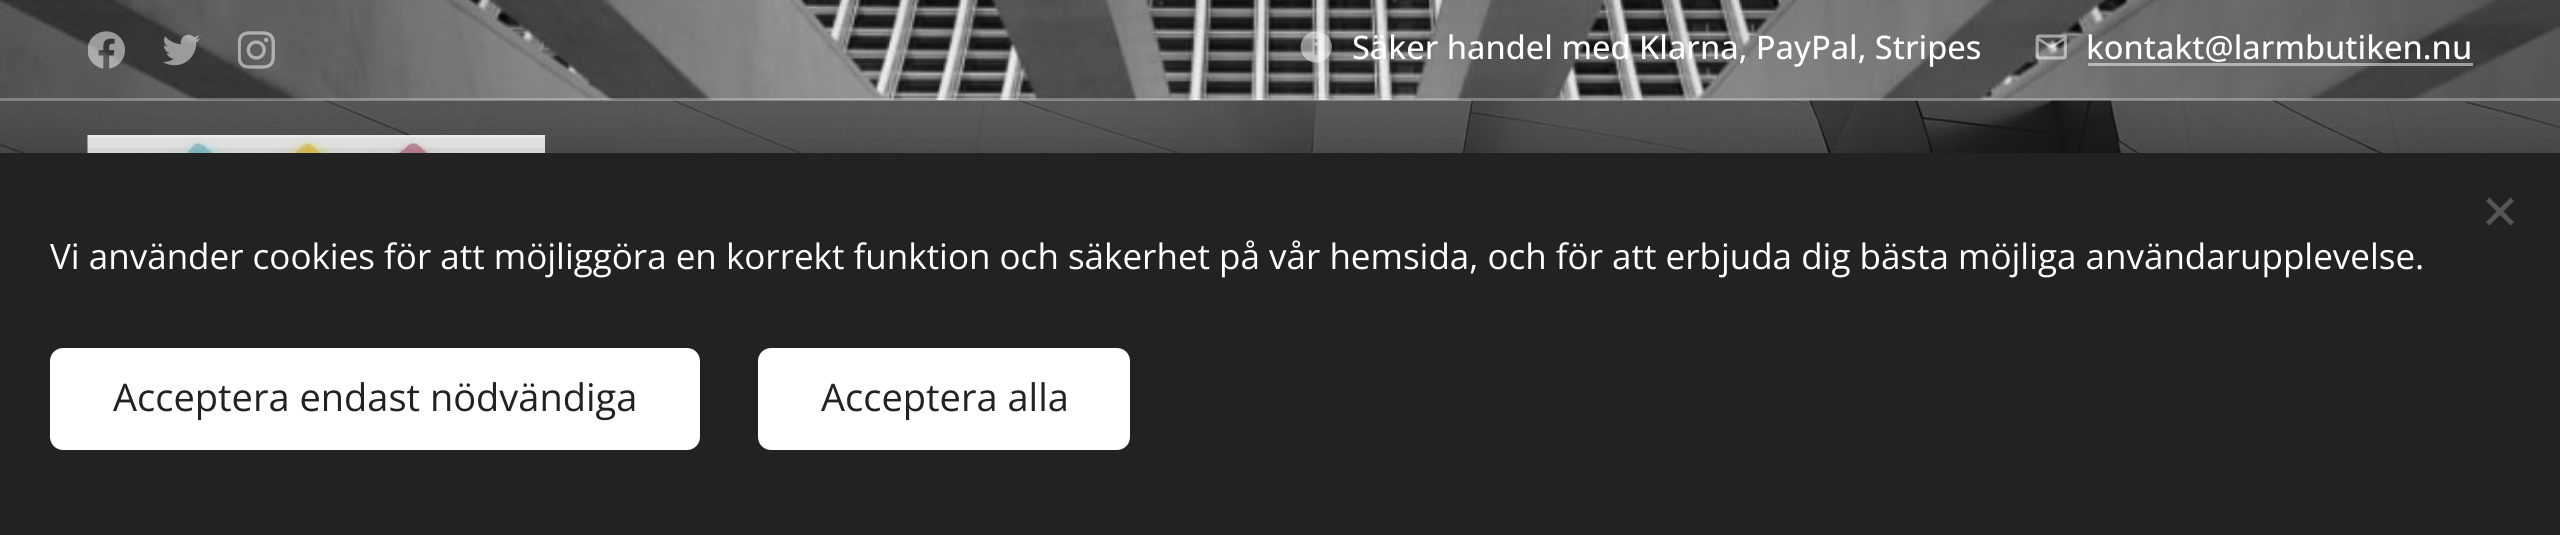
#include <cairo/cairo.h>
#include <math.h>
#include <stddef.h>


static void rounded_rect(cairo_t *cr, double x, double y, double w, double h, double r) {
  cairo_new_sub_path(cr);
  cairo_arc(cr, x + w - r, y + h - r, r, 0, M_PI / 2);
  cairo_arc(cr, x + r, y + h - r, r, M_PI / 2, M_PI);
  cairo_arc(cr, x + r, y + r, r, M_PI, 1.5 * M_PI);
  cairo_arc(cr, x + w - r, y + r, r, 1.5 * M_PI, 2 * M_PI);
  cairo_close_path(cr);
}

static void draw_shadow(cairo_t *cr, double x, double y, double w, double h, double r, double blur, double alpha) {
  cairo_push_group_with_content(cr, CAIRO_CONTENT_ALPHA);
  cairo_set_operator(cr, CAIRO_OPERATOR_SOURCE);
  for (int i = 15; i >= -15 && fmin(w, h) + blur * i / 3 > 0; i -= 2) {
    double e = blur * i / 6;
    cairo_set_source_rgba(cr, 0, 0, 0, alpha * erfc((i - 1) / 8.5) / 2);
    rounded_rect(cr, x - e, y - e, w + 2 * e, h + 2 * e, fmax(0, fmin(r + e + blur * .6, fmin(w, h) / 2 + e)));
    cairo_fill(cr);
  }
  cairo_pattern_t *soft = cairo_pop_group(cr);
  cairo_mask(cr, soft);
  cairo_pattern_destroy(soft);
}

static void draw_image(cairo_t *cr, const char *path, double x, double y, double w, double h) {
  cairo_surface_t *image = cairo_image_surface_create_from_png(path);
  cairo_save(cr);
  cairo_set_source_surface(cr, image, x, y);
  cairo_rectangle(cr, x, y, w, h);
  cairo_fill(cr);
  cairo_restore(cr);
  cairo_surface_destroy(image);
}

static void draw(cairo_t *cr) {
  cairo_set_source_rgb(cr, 1, 1, 1);
  cairo_paint(cr);
  draw_image(cr, "images/1.png", 0, 0, 2560, 100);
  draw_image(cr, "images/2.png", 88, 31, 37, 38);
  draw_image(cr, "images/3.png", 163, 34, 37, 32);
  draw_image(cr, "images/4.png", 238, 31, 37, 38);
  draw_image(cr, "images/5.png", 1300, 31, 32, 32);
  draw_image(cr, "images/6.png", 2035, 34, 32, 26);
  cairo_set_source_rgba(cr, 1, 1, 1, 0.5);
  cairo_rectangle(cr, 2088, 63, 385, 3);
  cairo_fill(cr);
  draw_image(cr, "images/7.png", 0, 100, 2560, 53);
  cairo_set_source_rgba(cr, 1, 1, 1, 0.3);
  cairo_rectangle(cr, 0, 98, 2560, 3);
  cairo_fill(cr);
  draw_image(cr, "images/8.png", 87, 135, 458, 18);
  cairo_set_source_rgb(cr, 0, 0, 0);
  draw_shadow(cr, 0, 153, 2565, 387, 0, 31, 0.33);
  cairo_set_source_rgb(cr, 34 / 255.0, 34 / 255.0, 34 / 255.0);
  cairo_rectangle(cr, 0, 153, 2560, 382);
  cairo_fill(cr);
  cairo_set_source_rgb(cr, 85 / 255.0, 85 / 255.0, 85 / 255.0);
  cairo_new_path(cr);
  cairo_move_to(cr, 2486, 222);
  cairo_line_to(cr, 2510.5, 197.5);
  cairo_line_to(cr, 2514, 201);
  cairo_line_to(cr, 2489.5, 225.5);
  cairo_close_path(cr);
  cairo_fill(cr);
  cairo_new_path(cr);
  cairo_move_to(cr, 2489.5, 197.5);
  cairo_line_to(cr, 2514, 222);
  cairo_line_to(cr, 2510.5, 225.5);
  cairo_line_to(cr, 2486, 201);
  cairo_close_path(cr);
  cairo_fill(cr);
  cairo_set_source_rgb(cr, 1, 1, 1);
  rounded_rect(cr, 50, 348, 650, 102, 13);
  cairo_fill(cr);
  rounded_rect(cr, 758, 348, 372, 102, 13);
  cairo_fill(cr);
  cairo_select_font_face(cr, "Open Sans Medium", CAIRO_FONT_SLANT_NORMAL, CAIRO_FONT_WEIGHT_NORMAL);
  cairo_set_font_size(cr, 32.5);
  cairo_move_to(cr, 1352, 59);
  cairo_show_text(cr, "Säker handel med Klarna, PayPal, Stripes");
  cairo_move_to(cr, 2086, 59);
  cairo_show_text(cr, "kontakt@larmbutiken.nu");
  cairo_select_font_face(cr, "Open Sans", CAIRO_FONT_SLANT_NORMAL, CAIRO_FONT_WEIGHT_NORMAL);
  cairo_set_font_size(cr, 35);
  cairo_move_to(cr, 50, 269);
  cairo_show_text(cr, "Vi använder cookies för att möjliggöra en korrekt funktion och säkerhet på vår hemsida, och för att erbjuda dig bästa möjliga användarupplevelse.");
  cairo_set_font_size(cr, 38);
  cairo_set_source_rgb(cr, 34 / 255.0, 34 / 255.0, 34 / 255.0);
  cairo_move_to(cr, 113, 411);
  cairo_show_text(cr, "Acceptera endast nödvändiga");
  cairo_move_to(cr, 821, 411);
  cairo_show_text(cr, "Acceptera alla");
}

int main(void) {
  cairo_surface_t *surface = cairo_image_surface_create(CAIRO_FORMAT_RGB24, 2560, 535);
  cairo_t *cr = cairo_create(surface);
  cairo_font_options_t *options = cairo_font_options_create();
  cairo_font_options_set_hint_metrics(options, CAIRO_HINT_METRICS_OFF);
  cairo_font_options_set_hint_style(options, CAIRO_HINT_STYLE_NONE);
  cairo_set_font_options(cr, options);
  cairo_set_miter_limit(cr, 4);
  draw(cr);
  cairo_surface_write_to_png(surface, "out.png");
  cairo_font_options_destroy(options);
  cairo_destroy(cr);
  cairo_surface_destroy(surface);
  return 0;
}
